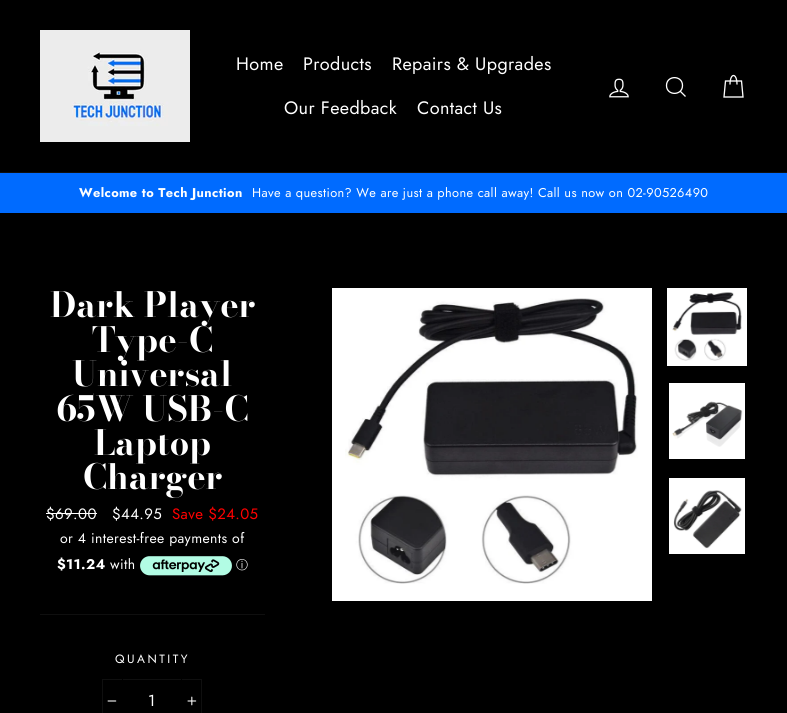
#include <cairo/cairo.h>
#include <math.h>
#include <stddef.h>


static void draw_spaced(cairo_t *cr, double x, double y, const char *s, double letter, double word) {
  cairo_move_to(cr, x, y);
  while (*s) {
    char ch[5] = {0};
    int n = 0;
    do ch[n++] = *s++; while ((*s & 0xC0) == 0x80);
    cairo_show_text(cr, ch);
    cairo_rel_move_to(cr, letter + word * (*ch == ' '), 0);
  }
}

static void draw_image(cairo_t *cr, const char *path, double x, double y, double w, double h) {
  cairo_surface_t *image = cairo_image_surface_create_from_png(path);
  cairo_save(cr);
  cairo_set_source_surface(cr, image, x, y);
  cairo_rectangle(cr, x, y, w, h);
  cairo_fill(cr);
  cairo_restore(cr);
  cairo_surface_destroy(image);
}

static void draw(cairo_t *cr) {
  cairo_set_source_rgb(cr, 0, 0, 0);
  cairo_paint(cr);
  cairo_set_source_rgb(cr, 15 / 255.0, 15 / 255.0, 15 / 255.0);
  cairo_rectangle(cr, 0, 172, 787, 1);
  cairo_fill(cr);
  draw_image(cr, "images/1.png", 40, 30, 150, 112);
  draw_image(cr, "images/2.png", 609, 78, 20, 20);
  cairo_new_path(cr);
  cairo_move_to(cr, 682.5, 85.5);
  cairo_curve_to(cr, 682.5, 96, 666.5, 96, 666.5, 85.5);
  cairo_curve_to(cr, 666.5, 75, 682.5, 75, 682.5, 85.5);
  cairo_close_path(cr);
  cairo_move_to(cr, 685.5, 96.5);
  cairo_line_to(cr, 680.5, 91.5);
  cairo_set_source_rgb(cr, 1, 1, 1);
  cairo_set_line_width(cr, 1.3);
  cairo_stroke(cr);
  cairo_new_path(cr);
  cairo_move_to(cr, 730, 84.5);
  cairo_curve_to(cr, 730, 72.5, 737, 72.5, 737, 84.5);
  cairo_move_to(cr, 725.5, 81);
  cairo_line_to(cr, 741.5, 81);
  cairo_line_to(cr, 743, 97);
  cairo_line_to(cr, 724, 97);
  cairo_close_path(cr);
  cairo_stroke(cr);
  cairo_set_source_rgb(cr, 0, 107 / 255.0, 1);
  cairo_rectangle(cr, 0, 173, 787, 40);
  cairo_fill(cr);
  cairo_set_source_rgb(cr, 1, 1, 1);
  cairo_rectangle(cr, 46, 513, 51, 1);
  cairo_fill(cr);
  draw_image(cr, "images/3.png", 140, 556, 92, 20);
  cairo_set_source_rgb(cr, 15 / 255.0, 15 / 255.0, 15 / 255.0);
  cairo_rectangle(cr, 40, 614, 225, 1);
  cairo_fill(cr);
  cairo_rectangle(cr, 102.5, 679.5, 99, 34);
  cairo_set_line_width(cr, 1);
  cairo_stroke(cr);
  cairo_set_source_rgb(cr, 0, 0, 0);
  cairo_rectangle(cr, 122, 679, 1, 1);
  cairo_fill(cr);
  draw_image(cr, "images/4.png", 107, 700, 10, 2);
  cairo_rectangle(cr, 181, 679, 1, 1);
  cairo_fill(cr);
  draw_image(cr, "images/5.png", 187, 696, 10, 10);
  cairo_set_source_rgb(cr, 1, 1, 1);
  cairo_rectangle(cr, 332, 288, 320, 313);
  cairo_fill(cr);
  draw_image(cr, "images/6.png", 345, 298, 293, 286);
  cairo_rectangle(cr, 668, 289, 78, 76);
  cairo_set_line_width(cr, 2);
  cairo_stroke(cr);
  cairo_rectangle(cr, 669, 290, 76, 74);
  cairo_fill(cr);
  draw_image(cr, "images/7.png", 672, 292, 70, 69);
  cairo_rectangle(cr, 669, 383, 76, 76);
  cairo_fill(cr);
  draw_image(cr, "images/8.png", 672, 401, 71, 46);
  cairo_rectangle(cr, 669, 478, 76, 76);
  cairo_fill(cr);
  draw_image(cr, "images/9.png", 673, 490, 69, 59);
  cairo_select_font_face(cr, "Jost", CAIRO_FONT_SLANT_NORMAL, CAIRO_FONT_WEIGHT_NORMAL);
  cairo_set_font_size(cr, 18);
  draw_spaced(cr, 236, 70, "Home", 0.38, 0);
  draw_spaced(cr, 303, 70, "Products", 0.38, 0);
  draw_spaced(cr, 392, 70, "Repairs & Upgrades", 0.38, 0);
  draw_spaced(cr, 284, 114, "Our Feedback", 0.38, 0);
  draw_spaced(cr, 417, 114, "Contact Us", 0.38, 0);
  cairo_select_font_face(cr, "Jost", CAIRO_FONT_SLANT_NORMAL, CAIRO_FONT_WEIGHT_BOLD);
  cairo_set_font_size(cr, 12.75);
  draw_spaced(cr, 79, 197, "Welcome to Tech Junction", 0.38, 0);
  cairo_select_font_face(cr, "Jost", CAIRO_FONT_SLANT_NORMAL, CAIRO_FONT_WEIGHT_NORMAL);
  draw_spaced(cr, 252, 197, "Have a question? We are just a phone call away! Call us now on 02-90526490", 0.38, 0);
  cairo_select_font_face(cr, "Bodoni Moda", CAIRO_FONT_SLANT_NORMAL, CAIRO_FONT_WEIGHT_BOLD);
  cairo_set_font_size(cr, 34.5);
  cairo_move_to(cr, 50, 317);
  cairo_show_text(cr, "Dark Player");
  cairo_move_to(cr, 92, 352);
  cairo_show_text(cr, "Type-C");
  cairo_move_to(cr, 72, 386);
  cairo_show_text(cr, "Universal");
  cairo_move_to(cr, 56, 421);
  cairo_show_text(cr, "65W USB-C");
  cairo_move_to(cr, 94, 455);
  cairo_show_text(cr, "Laptop");
  cairo_move_to(cr, 83, 489);
  cairo_show_text(cr, "Charger");
  cairo_select_font_face(cr, "Jost", CAIRO_FONT_SLANT_NORMAL, CAIRO_FONT_WEIGHT_NORMAL);
  cairo_set_font_size(cr, 15);
  draw_spaced(cr, 46, 519, "$69.00", 0.38, 0);
  draw_spaced(cr, 112, 519, "$44.95", 0.38, 0);
  cairo_set_source_rgb(cr, 1, 0, 0);
  draw_spaced(cr, 172, 519, "Save $24.05", 0.38, 0);
  cairo_set_font_size(cr, 14);
  cairo_set_source_rgb(cr, 1, 1, 1);
  draw_spaced(cr, 60, 543, "or 4 interest-free payments of", 0.38, 0);
  cairo_select_font_face(cr, "Jost", CAIRO_FONT_SLANT_NORMAL, CAIRO_FONT_WEIGHT_BOLD);
  draw_spaced(cr, 57, 569, "$11.24", 0.38, 0);
  cairo_select_font_face(cr, "Jost", CAIRO_FONT_SLANT_NORMAL, CAIRO_FONT_WEIGHT_NORMAL);
  draw_spaced(cr, 110, 569, "with", 0.38, 0);
  cairo_select_font_face(cr, "WenQuanYi Zen Hei Medium", CAIRO_FONT_SLANT_NORMAL, CAIRO_FONT_WEIGHT_NORMAL);
  cairo_set_font_size(cr, 12);
  cairo_move_to(cr, 236, 569);
  cairo_show_text(cr, "ⓘ");
  cairo_select_font_face(cr, "Jost", CAIRO_FONT_SLANT_NORMAL, CAIRO_FONT_WEIGHT_NORMAL);
  draw_spaced(cr, 115, 663, "QUANTITY", 2.5, 0);
  cairo_set_font_size(cr, 16);
  cairo_move_to(cr, 148, 706);
  cairo_show_text(cr, "1");
}

int main(void) {
  cairo_surface_t *surface = cairo_image_surface_create(CAIRO_FORMAT_RGB24, 787, 713);
  cairo_t *cr = cairo_create(surface);
  cairo_font_options_t *options = cairo_font_options_create();
  cairo_font_options_set_hint_metrics(options, CAIRO_HINT_METRICS_OFF);
  cairo_font_options_set_hint_style(options, CAIRO_HINT_STYLE_NONE);
  cairo_set_font_options(cr, options);
  cairo_set_miter_limit(cr, 4);
  draw(cr);
  cairo_surface_write_to_png(surface, "out.png");
  cairo_font_options_destroy(options);
  cairo_destroy(cr);
  cairo_surface_destroy(surface);
  return 0;
}
